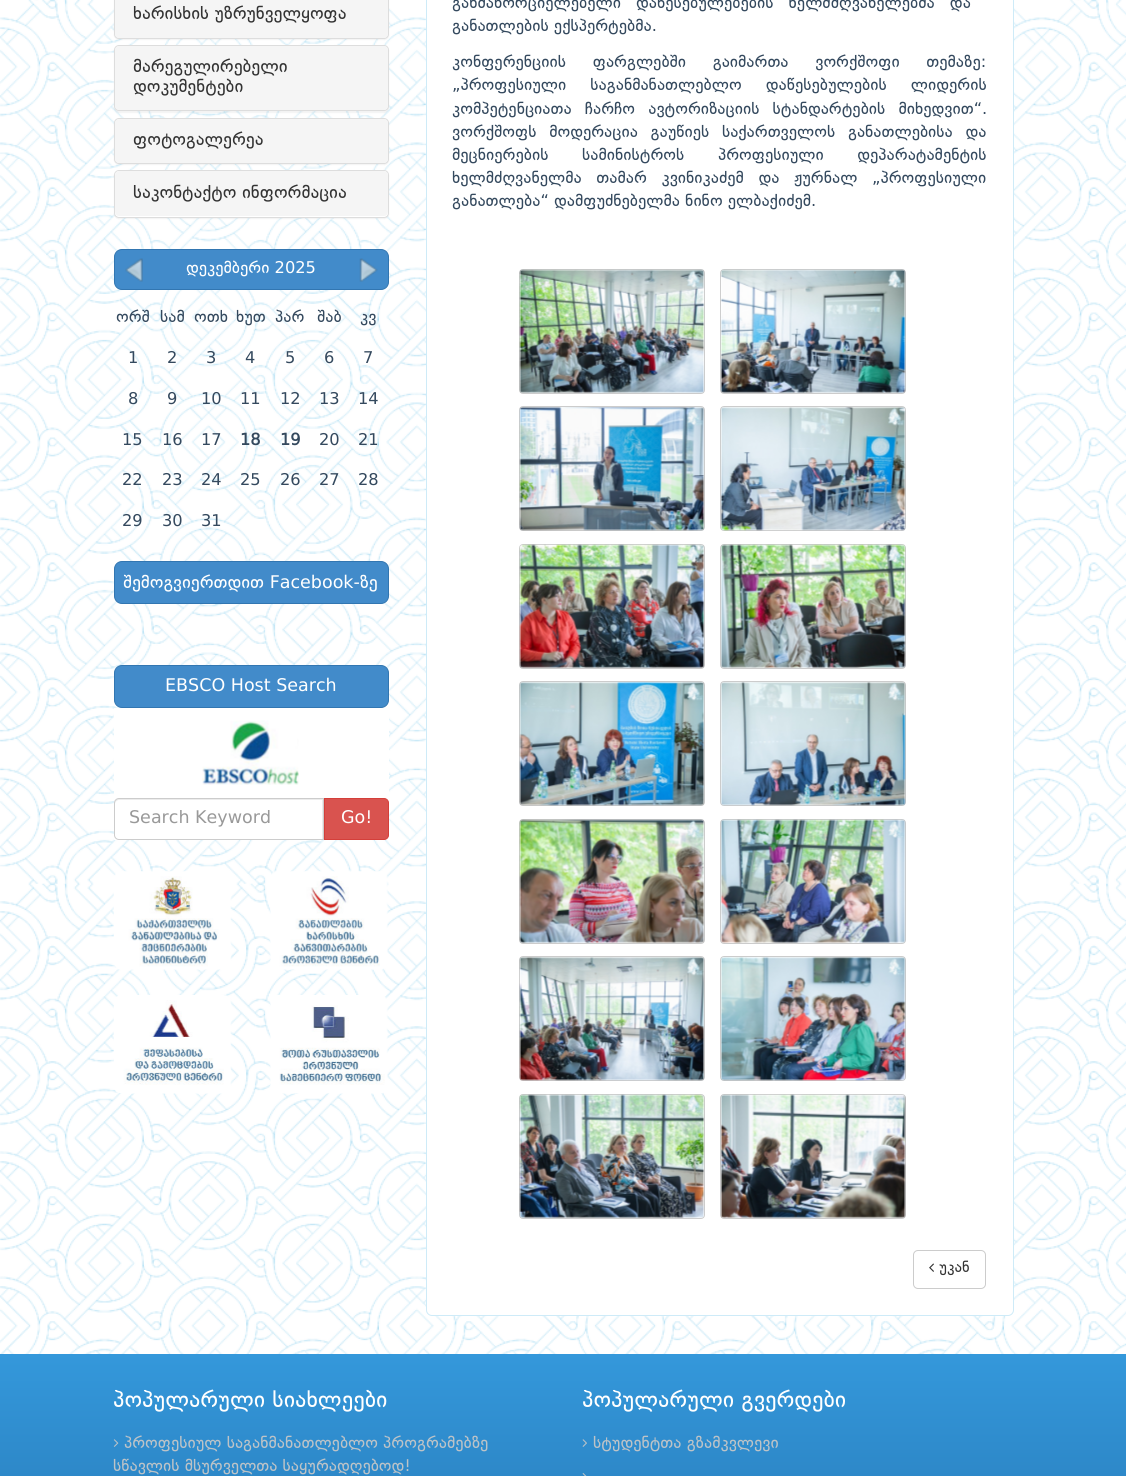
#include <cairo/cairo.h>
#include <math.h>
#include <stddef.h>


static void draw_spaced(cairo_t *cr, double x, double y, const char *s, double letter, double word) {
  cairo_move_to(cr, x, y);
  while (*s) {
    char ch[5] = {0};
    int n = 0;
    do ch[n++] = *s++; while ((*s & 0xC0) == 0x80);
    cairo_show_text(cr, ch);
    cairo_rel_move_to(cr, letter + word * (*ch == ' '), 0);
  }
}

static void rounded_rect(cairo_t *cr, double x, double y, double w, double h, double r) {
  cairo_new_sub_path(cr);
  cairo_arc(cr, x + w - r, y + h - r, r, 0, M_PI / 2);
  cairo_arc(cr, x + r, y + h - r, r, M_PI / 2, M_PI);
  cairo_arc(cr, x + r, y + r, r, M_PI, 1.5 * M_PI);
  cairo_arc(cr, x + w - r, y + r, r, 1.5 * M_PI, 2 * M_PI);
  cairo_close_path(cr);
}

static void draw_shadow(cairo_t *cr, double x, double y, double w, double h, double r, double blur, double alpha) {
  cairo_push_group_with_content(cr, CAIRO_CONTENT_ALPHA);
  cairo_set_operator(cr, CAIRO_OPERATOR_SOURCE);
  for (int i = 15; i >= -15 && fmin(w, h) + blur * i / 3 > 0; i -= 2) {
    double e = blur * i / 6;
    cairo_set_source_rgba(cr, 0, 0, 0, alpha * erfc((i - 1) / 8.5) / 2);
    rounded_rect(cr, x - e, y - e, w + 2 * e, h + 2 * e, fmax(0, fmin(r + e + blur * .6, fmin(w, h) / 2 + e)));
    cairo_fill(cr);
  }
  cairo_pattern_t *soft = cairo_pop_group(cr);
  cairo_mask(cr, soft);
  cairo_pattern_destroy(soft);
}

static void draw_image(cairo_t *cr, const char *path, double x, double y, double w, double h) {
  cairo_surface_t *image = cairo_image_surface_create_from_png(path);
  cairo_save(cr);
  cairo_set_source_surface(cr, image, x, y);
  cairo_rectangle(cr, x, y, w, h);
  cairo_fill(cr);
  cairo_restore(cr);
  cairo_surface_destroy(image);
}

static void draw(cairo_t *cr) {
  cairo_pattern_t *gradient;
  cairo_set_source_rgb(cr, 1, 1, 1);
  cairo_paint(cr);
  draw_image(cr, "images/1.png", 0, 0, 1126, 1354);
  cairo_set_source_rgb(cr, 0, 0, 0);
  draw_shadow(cr, 114, -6, 275, 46, 5, 0.5, 0.05);
  rounded_rect(cr, 114.5, -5.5, 274, 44, 4.5);
  cairo_set_source_rgb(cr, 221 / 255.0, 221 / 255.0, 221 / 255.0);
  cairo_set_line_width(cr, 1);
  cairo_stroke(cr);
  cairo_set_source_rgb(cr, 245 / 255.0, 245 / 255.0, 245 / 255.0);
  rounded_rect(cr, 115, -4, 273, 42, 4);
  cairo_fill(cr);
  cairo_set_source_rgb(cr, 0, 0, 0);
  draw_shadow(cr, 114, 46, 275, 67, 5, 0.5, 0.05);
  rounded_rect(cr, 114.5, 45.5, 274, 65, 4.5);
  cairo_set_source_rgb(cr, 221 / 255.0, 221 / 255.0, 221 / 255.0);
  cairo_stroke(cr);
  cairo_set_source_rgb(cr, 245 / 255.0, 245 / 255.0, 245 / 255.0);
  rounded_rect(cr, 115, 46, 273, 64, 4);
  cairo_fill(cr);
  cairo_set_source_rgb(cr, 0, 0, 0);
  draw_shadow(cr, 114, 119, 275, 46, 5, 0.5, 0.05);
  rounded_rect(cr, 114.5, 118.5, 274, 45, 4.5);
  cairo_set_source_rgb(cr, 221 / 255.0, 221 / 255.0, 221 / 255.0);
  cairo_stroke(cr);
  cairo_set_source_rgb(cr, 245 / 255.0, 245 / 255.0, 245 / 255.0);
  rounded_rect(cr, 115, 119, 273, 44, 4);
  cairo_fill(cr);
  cairo_set_source_rgb(cr, 0, 0, 0);
  draw_shadow(cr, 114, 171, 275, 48, 5, 0.5, 0.05);
  cairo_set_source_rgb(cr, 1, 1, 1);
  rounded_rect(cr, 114.5, 170.5, 274, 47, 4.5);
  cairo_fill_preserve(cr);
  cairo_set_source_rgb(cr, 221 / 255.0, 221 / 255.0, 221 / 255.0);
  cairo_stroke(cr);
  cairo_set_source_rgb(cr, 245 / 255.0, 245 / 255.0, 245 / 255.0);
  rounded_rect(cr, 115, 171, 273, 45, 4);
  cairo_fill(cr);
  cairo_set_source_rgb(cr, 66 / 255.0, 139 / 255.0, 202 / 255.0);
  rounded_rect(cr, 114.5, 249.5, 274, 40, 7.5);
  cairo_fill_preserve(cr);
  cairo_set_source_rgb(cr, 50 / 255.0, 118 / 255.0, 177 / 255.0);
  cairo_stroke(cr);
  draw_image(cr, "images/2.png", 125, 258, 18, 24);
  draw_image(cr, "images/3.png", 359, 258, 19, 24);
  cairo_set_source_rgb(cr, 66 / 255.0, 139 / 255.0, 202 / 255.0);
  rounded_rect(cr, 114.5, 561.5, 274, 42, 7.5);
  cairo_fill_preserve(cr);
  cairo_set_source_rgb(cr, 50 / 255.0, 118 / 255.0, 177 / 255.0);
  cairo_stroke(cr);
  cairo_set_source_rgb(cr, 66 / 255.0, 139 / 255.0, 202 / 255.0);
  rounded_rect(cr, 114.5, 665.5, 274, 42, 7.5);
  cairo_fill_preserve(cr);
  cairo_set_source_rgb(cr, 50 / 255.0, 118 / 255.0, 177 / 255.0);
  cairo_stroke(cr);
  cairo_set_source_rgb(cr, 1, 1, 1);
  cairo_rectangle(cr, 114, 708, 275, 132);
  cairo_fill(cr);
  draw_image(cr, "images/4.png", 202, 720, 97, 65);
  cairo_set_source_rgb(cr, 236 / 255.0, 236 / 255.0, 236 / 255.0);
  cairo_new_path(cr);
  cairo_move_to(cr, 119, 800);
  cairo_line_to(cr, 322, 800);
  cairo_line_to(cr, 322, 839);
  cairo_line_to(cr, 323, 839);
  cairo_line_to(cr, 323, 799);
  cairo_line_to(cr, 117, 799);
  cairo_curve_to(cr, 115, 800, 115, 802, 115, 804);
  cairo_curve_to(cr, 115, 802, 117, 800, 119, 800);
  cairo_close_path(cr);
  cairo_fill(cr);
  cairo_new_path(cr);
  cairo_move_to(cr, 119, 798.5);
  cairo_line_to(cr, 323.5, 798.5);
  cairo_line_to(cr, 323.5, 839.5);
  cairo_line_to(cr, 119, 839.5);
  cairo_curve_to(cr, 116.5, 839.5, 114.5, 837.5, 114.5, 835);
  cairo_line_to(cr, 114.5, 803);
  cairo_curve_to(cr, 114.5, 800.5, 116.5, 798.5, 119, 798.5);
  cairo_close_path(cr);
  cairo_set_source_rgb(cr, 204 / 255.0, 204 / 255.0, 204 / 255.0);
  cairo_stroke(cr);
  cairo_set_source_rgb(cr, 217 / 255.0, 83 / 255.0, 79 / 255.0);
  cairo_new_path(cr);
  cairo_move_to(cr, 324.5, 798.5);
  cairo_line_to(cr, 384, 798.5);
  cairo_curve_to(cr, 386.5, 798.5, 388.5, 800.5, 388.5, 803);
  cairo_line_to(cr, 388.5, 835);
  cairo_curve_to(cr, 388.5, 837.5, 386.5, 839.5, 384, 839.5);
  cairo_line_to(cr, 324.5, 839.5);
  cairo_close_path(cr);
  cairo_fill_preserve(cr);
  cairo_set_source_rgb(cr, 212 / 255.0, 63 / 255.0, 58 / 255.0);
  cairo_stroke(cr);
  draw_image(cr, "images/5.png", 113, 871, 119, 100);
  draw_image(cr, "images/6.png", 269, 871, 119, 100);
  draw_image(cr, "images/7.png", 113, 995, 119, 99);
  draw_image(cr, "images/8.png", 269, 995, 119, 99);
  cairo_set_source_rgb(cr, 1, 1, 1);
  rounded_rect(cr, 426.5, -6.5, 587, 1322, 5.5);
  cairo_fill_preserve(cr);
  cairo_set_source_rgb(cr, 206 / 255.0, 235 / 255.0, 248 / 255.0);
  cairo_stroke(cr);
  rounded_rect(cr, 519.5, 269.5, 185, 124, 3.5);
  cairo_set_source_rgb(cr, 204 / 255.0, 204 / 255.0, 204 / 255.0);
  cairo_stroke(cr);
  draw_image(cr, "images/9.png", 519, 269, 186, 124);
  rounded_rect(cr, 720.5, 269.5, 185, 124, 3.5);
  cairo_stroke(cr);
  draw_image(cr, "images/10.png", 720, 269, 186, 124);
  rounded_rect(cr, 519.5, 406.5, 185, 124, 3.5);
  cairo_stroke(cr);
  rounded_rect(cr, 720.5, 406.5, 185, 124, 3.5);
  cairo_stroke(cr);
  draw_image(cr, "images/11.png", 519, 407, 186, 124);
  draw_image(cr, "images/12.png", 720, 407, 186, 124);
  rounded_rect(cr, 519.5, 544.5, 185, 124, 3.5);
  cairo_stroke(cr);
  draw_image(cr, "images/13.png", 519, 544, 186, 124);
  rounded_rect(cr, 720.5, 544.5, 185, 124, 3.5);
  cairo_stroke(cr);
  draw_image(cr, "images/14.png", 721, 544, 185, 124);
  rounded_rect(cr, 519.5, 681.5, 185, 124, 3.5);
  cairo_stroke(cr);
  rounded_rect(cr, 720.5, 681.5, 185, 124, 3.5);
  cairo_stroke(cr);
  draw_image(cr, "images/15.png", 519, 682, 186, 124);
  draw_image(cr, "images/16.png", 721, 682, 185, 124);
  rounded_rect(cr, 519.5, 819.5, 185, 124, 3.5);
  cairo_stroke(cr);
  draw_image(cr, "images/17.png", 519, 819, 186, 124);
  rounded_rect(cr, 720.5, 819.5, 185, 124, 3.5);
  cairo_stroke(cr);
  draw_image(cr, "images/18.png", 721, 819, 185, 124);
  rounded_rect(cr, 519.5, 956.5, 185, 124, 3.5);
  cairo_stroke(cr);
  rounded_rect(cr, 720.5, 956.5, 185, 124, 3.5);
  cairo_stroke(cr);
  draw_image(cr, "images/19.png", 519, 957, 186, 124);
  draw_image(cr, "images/20.png", 721, 957, 185, 124);
  rounded_rect(cr, 519.5, 1094.5, 185, 124, 3.5);
  cairo_stroke(cr);
  draw_image(cr, "images/21.png", 519, 1094, 186, 124);
  rounded_rect(cr, 720.5, 1094.5, 185, 124, 3.5);
  cairo_stroke(cr);
  draw_image(cr, "images/22.png", 720, 1094, 186, 124);
  rounded_rect(cr, 913.5, 1250.5, 72, 38, 4.5);
  cairo_stroke(cr);
  draw_image(cr, "images/23.png", 929, 1263, 5, 9);
  gradient = cairo_pattern_create_linear(563, 1354, 563, 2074);
  cairo_pattern_add_color_stop_rgba(gradient, 0, 52 / 255.0, 152 / 255.0, 219 / 255.0, 1);
  cairo_pattern_add_color_stop_rgba(gradient, 1, 12 / 255.0, 58 / 255.0, 109 / 255.0, 1);
  cairo_set_source(cr, gradient);
  cairo_pattern_destroy(gradient);
  cairo_rectangle(cr, 0, 1354, 1126, 122);
  cairo_fill(cr);
  draw_image(cr, "images/24.png", 113, 1439, 6, 8);
  draw_image(cr, "images/25.png", 582, 1439, 5, 8);
  draw_image(cr, "images/26.png", 582, 1473, 5, 3);
  cairo_select_font_face(cr, "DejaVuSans", CAIRO_FONT_SLANT_NORMAL, CAIRO_FONT_WEIGHT_NORMAL);
  cairo_set_font_size(cr, 17.5);
  cairo_set_source_rgb(cr, 51 / 255.0, 51 / 255.0, 51 / 255.0);
  cairo_move_to(cr, 133, 19);
  cairo_show_text(cr, "ხარისხის უზრუნველყოფა");
  cairo_move_to(cr, 133, 72);
  cairo_show_text(cr, "მარეგულირებელი");
  cairo_move_to(cr, 133, 92);
  cairo_show_text(cr, "დოკუმენტები");
  cairo_move_to(cr, 133, 145);
  cairo_show_text(cr, "ფოტოგალერეა");
  cairo_move_to(cr, 133, 198);
  cairo_show_text(cr, "საკონტაქტო ინფორმაცია");
  cairo_set_font_size(cr, 16.25);
  cairo_set_source_rgb(cr, 1, 1, 1);
  cairo_move_to(cr, 186, 273);
  cairo_show_text(cr, "დეკემბერი 2025");
  cairo_set_source_rgb(cr, 52 / 255.0, 73 / 255.0, 94 / 255.0);
  cairo_move_to(cr, 116, 322);
  cairo_show_text(cr, "ორშ");
  cairo_move_to(cr, 160, 322);
  cairo_show_text(cr, "სამ");
  cairo_move_to(cr, 194, 322);
  cairo_show_text(cr, "ოთხ");
  cairo_move_to(cr, 236, 322);
  cairo_show_text(cr, "ხუთ");
  cairo_move_to(cr, 275, 322);
  cairo_show_text(cr, "პარ");
  cairo_move_to(cr, 317, 322);
  cairo_show_text(cr, "შაბ");
  cairo_move_to(cr, 360, 322);
  cairo_show_text(cr, "კვ");
  cairo_move_to(cr, 128, 363);
  cairo_show_text(cr, "1");
  cairo_move_to(cr, 167, 363);
  cairo_show_text(cr, "2");
  cairo_move_to(cr, 206, 363);
  cairo_show_text(cr, "3");
  cairo_move_to(cr, 245, 363);
  cairo_show_text(cr, "4");
  cairo_move_to(cr, 285, 363);
  cairo_show_text(cr, "5");
  cairo_move_to(cr, 324, 363);
  cairo_show_text(cr, "6");
  cairo_move_to(cr, 363, 363);
  cairo_show_text(cr, "7");
  cairo_move_to(cr, 128, 404);
  cairo_show_text(cr, "8");
  cairo_move_to(cr, 167, 404);
  cairo_show_text(cr, "9");
  cairo_move_to(cr, 201, 404);
  cairo_show_text(cr, "10");
  cairo_move_to(cr, 240, 404);
  cairo_show_text(cr, "11");
  cairo_move_to(cr, 280, 404);
  cairo_show_text(cr, "12");
  cairo_move_to(cr, 319, 404);
  cairo_show_text(cr, "13");
  cairo_move_to(cr, 358, 404);
  cairo_show_text(cr, "14");
  cairo_move_to(cr, 122, 445);
  cairo_show_text(cr, "15");
  cairo_move_to(cr, 162, 445);
  cairo_show_text(cr, "16");
  cairo_move_to(cr, 201, 445);
  cairo_show_text(cr, "17");
  cairo_select_font_face(cr, "DejaVuSans", CAIRO_FONT_SLANT_NORMAL, CAIRO_FONT_WEIGHT_BOLD);
  cairo_move_to(cr, 240, 445);
  cairo_show_text(cr, "18");
  cairo_move_to(cr, 280, 445);
  cairo_show_text(cr, "19");
  cairo_select_font_face(cr, "DejaVuSans", CAIRO_FONT_SLANT_NORMAL, CAIRO_FONT_WEIGHT_NORMAL);
  cairo_move_to(cr, 319, 445);
  cairo_show_text(cr, "20");
  cairo_move_to(cr, 358, 445);
  cairo_show_text(cr, "21");
  cairo_move_to(cr, 122, 485);
  cairo_show_text(cr, "22");
  cairo_move_to(cr, 162, 485);
  cairo_show_text(cr, "23");
  cairo_move_to(cr, 201, 485);
  cairo_show_text(cr, "24");
  cairo_move_to(cr, 240, 485);
  cairo_show_text(cr, "25");
  cairo_move_to(cr, 280, 485);
  cairo_show_text(cr, "26");
  cairo_move_to(cr, 319, 485);
  cairo_show_text(cr, "27");
  cairo_move_to(cr, 358, 485);
  cairo_show_text(cr, "28");
  cairo_move_to(cr, 122, 526);
  cairo_show_text(cr, "29");
  cairo_move_to(cr, 162, 526);
  cairo_show_text(cr, "30");
  cairo_move_to(cr, 201, 526);
  cairo_show_text(cr, "31");
  cairo_set_font_size(cr, 17.5);
  cairo_set_source_rgb(cr, 1, 1, 1);
  cairo_move_to(cr, 123, 588);
  cairo_show_text(cr, "შემოგვიერთდით Facebook-ზე");
  cairo_move_to(cr, 165, 691);
  cairo_show_text(cr, "EBSCO Host Search");
  cairo_save(cr);
  cairo_rectangle(cr, 130, 810, 178, 18);
  cairo_clip(cr);
  cairo_set_source_rgb(cr, 153 / 255.0, 153 / 255.0, 153 / 255.0);
  cairo_move_to(cr, 129, 823);
  cairo_show_text(cr, "Search Keyword");
  cairo_restore(cr);
  cairo_move_to(cr, 341, 823);
  cairo_show_text(cr, "Go!");
  cairo_set_font_size(cr, 16.25);
  cairo_set_source_rgb(cr, 52 / 255.0, 73 / 255.0, 94 / 255.0);
  draw_spaced(cr, 452, 8, "განმახორციელებელი დაწესებულებების ხელმძღვანელებმა და", 0, 10);
  cairo_move_to(cr, 452, 31);
  cairo_show_text(cr, "განათლების ექსპერტებმა.");
  draw_spaced(cr, 452, 67, "კონფერენციის ფარგლებში გაიმართა ვორქშოფი თემაზე:", 0, 21.5);
  draw_spaced(cr, 452, 90, "„პროფესიული საგანმანათლებლო დაწესებულების ლიდერის", 0, 19);
  draw_spaced(cr, 452, 114, "კომპეტენციათა ჩარჩო ავტორიზაციის სტანდარტების მიხედვით“.", 0, 8);
  draw_spaced(cr, 452, 137, "ვორქშოფს მოდერაცია გაუწიეს საქართველოს განათლებისა და", 0, 7.5);
  draw_spaced(cr, 452, 160, "მეცნიერების სამინისტროს პროფესიული დეპარატამენტის", 0, 28.5);
  draw_spaced(cr, 452, 183, "ხელმძღვანელმა თამარ კვინიკაძემ და ჟურნალ „პროფესიული", 0, 9.5);
  cairo_move_to(cr, 452, 206);
  cairo_show_text(cr, "განათლება“ დამფუძნებელმა ნინო ელბაქიძემ.");
  cairo_set_font_size(cr, 15);
  cairo_set_source_rgb(cr, 51 / 255.0, 51 / 255.0, 51 / 255.0);
  cairo_move_to(cr, 939, 1272);
  cairo_show_text(cr, "უკან");
  cairo_set_font_size(cr, 22.5);
  cairo_set_source_rgb(cr, 1, 1, 1);
  cairo_move_to(cr, 113, 1407);
  cairo_show_text(cr, "პოპულარული სიახლეები");
  cairo_set_font_size(cr, 16.25);
  cairo_set_source_rgb(cr, 189 / 255.0, 195 / 255.0, 199 / 255.0);
  cairo_move_to(cr, 124, 1448);
  cairo_show_text(cr, "პროფესიულ საგანმანათლებლო პროგრამებზე");
  cairo_move_to(cr, 113, 1471);
  cairo_show_text(cr, "სწავლის მსურველთა საყურადღებოდ!");
  cairo_set_font_size(cr, 22.5);
  cairo_set_source_rgb(cr, 1, 1, 1);
  cairo_move_to(cr, 582, 1407);
  cairo_show_text(cr, "პოპულარული გვერდები");
  cairo_set_font_size(cr, 16.25);
  cairo_set_source_rgb(cr, 189 / 255.0, 195 / 255.0, 199 / 255.0);
  cairo_move_to(cr, 593, 1448);
  cairo_show_text(cr, "სტუდენტთა გზამკვლევი");
}

int main(void) {
  cairo_surface_t *surface = cairo_image_surface_create(CAIRO_FORMAT_RGB24, 1126, 1476);
  cairo_t *cr = cairo_create(surface);
  cairo_font_options_t *options = cairo_font_options_create();
  cairo_font_options_set_hint_metrics(options, CAIRO_HINT_METRICS_OFF);
  cairo_font_options_set_hint_style(options, CAIRO_HINT_STYLE_NONE);
  cairo_set_font_options(cr, options);
  cairo_set_miter_limit(cr, 4);
  draw(cr);
  cairo_surface_write_to_png(surface, "out.png");
  cairo_font_options_destroy(options);
  cairo_destroy(cr);
  cairo_surface_destroy(surface);
  return 0;
}
